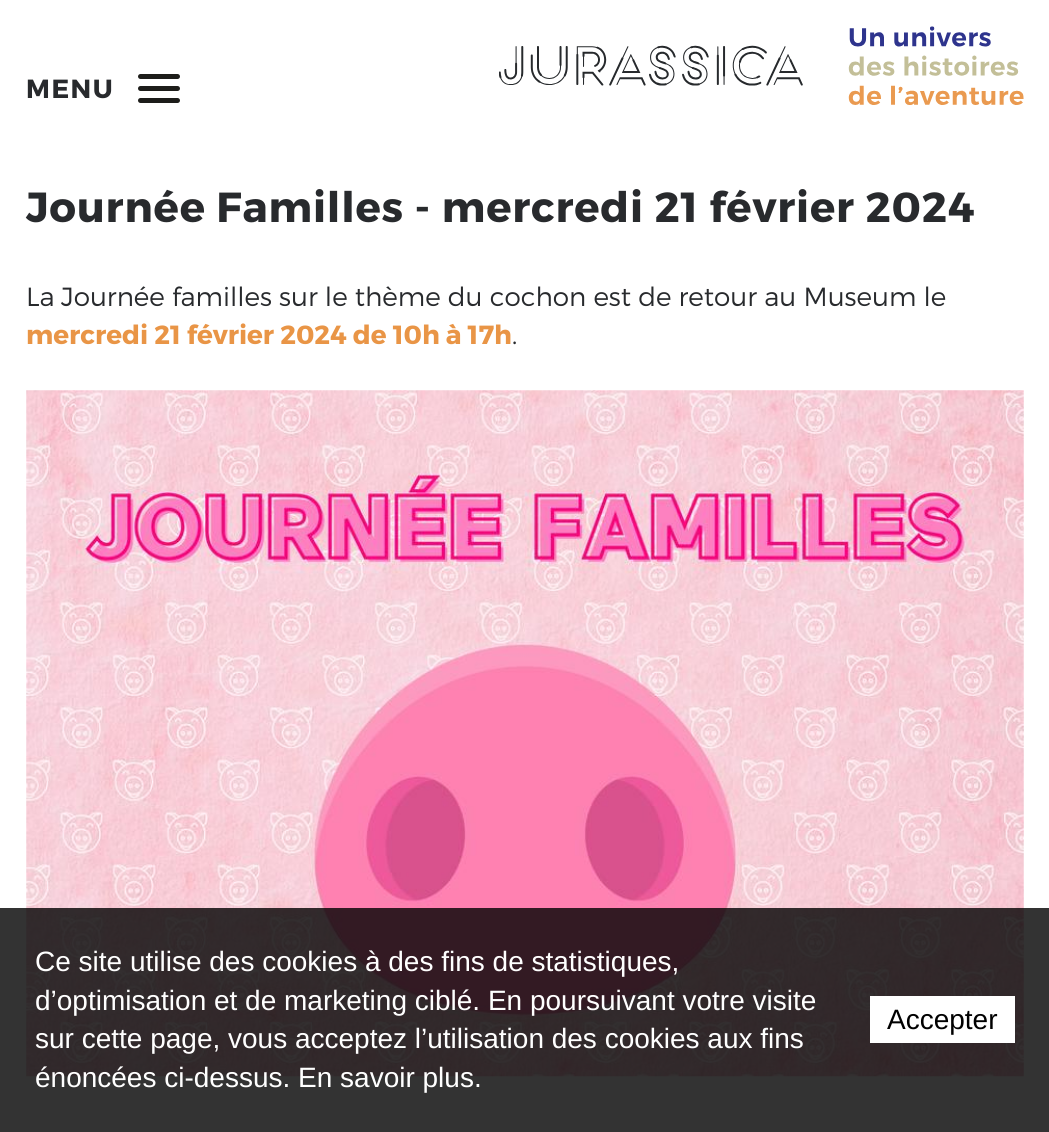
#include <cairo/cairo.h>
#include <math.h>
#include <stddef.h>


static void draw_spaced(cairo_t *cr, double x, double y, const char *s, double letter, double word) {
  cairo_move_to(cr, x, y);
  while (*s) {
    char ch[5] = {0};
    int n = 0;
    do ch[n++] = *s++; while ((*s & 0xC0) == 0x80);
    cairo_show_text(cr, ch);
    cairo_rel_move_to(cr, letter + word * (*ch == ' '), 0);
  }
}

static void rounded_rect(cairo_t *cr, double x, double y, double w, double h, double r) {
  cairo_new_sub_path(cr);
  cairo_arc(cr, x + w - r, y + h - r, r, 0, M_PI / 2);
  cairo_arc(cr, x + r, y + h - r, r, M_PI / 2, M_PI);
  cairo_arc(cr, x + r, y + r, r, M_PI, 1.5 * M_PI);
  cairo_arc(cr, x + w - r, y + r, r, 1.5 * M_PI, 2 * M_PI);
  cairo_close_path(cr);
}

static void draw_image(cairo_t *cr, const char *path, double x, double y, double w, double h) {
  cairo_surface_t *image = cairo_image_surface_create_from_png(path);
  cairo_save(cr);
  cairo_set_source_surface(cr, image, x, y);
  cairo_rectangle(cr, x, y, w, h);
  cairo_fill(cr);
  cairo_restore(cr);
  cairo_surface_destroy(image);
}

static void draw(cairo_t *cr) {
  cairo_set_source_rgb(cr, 1, 1, 1);
  cairo_paint(cr);
  cairo_set_source_rgb(cr, 29 / 255.0, 29 / 255.0, 26 / 255.0);
  rounded_rect(cr, 138, 86, 42, 5, 2.5);
  cairo_fill(cr);
  rounded_rect(cr, 138, 74, 42, 5, 2.5);
  cairo_fill(cr);
  rounded_rect(cr, 138, 98, 42, 5, 2.5);
  cairo_fill(cr);
  draw_image(cr, "images/1.png", 499, 26, 525, 79);
  draw_image(cr, "images/2.png", 26, 390, 998, 687);
  cairo_set_source_rgba(cr, 0, 0, 0, 0.8);
  cairo_rectangle(cr, 0, 908, 1049, 224);
  cairo_fill(cr);
  cairo_set_source_rgb(cr, 1, 1, 1);
  cairo_rectangle(cr, 870, 996, 145, 47);
  cairo_fill(cr);
  cairo_select_font_face(cr, "Montserrat", CAIRO_FONT_SLANT_NORMAL, CAIRO_FONT_WEIGHT_BOLD);
  cairo_set_font_size(cr, 26.25);
  cairo_set_source_rgb(cr, 40 / 255.0, 42 / 255.0, 45 / 255.0);
  draw_spaced(cr, 26, 98, "MENU", 1.5, 0);
  cairo_set_font_size(cr, 42);
  draw_spaced(cr, 26, 222, "Journée Familles - mercredi 21 février 2024", 0.85, 0);
  cairo_select_font_face(cr, "Montserrat Light", CAIRO_FONT_SLANT_NORMAL, CAIRO_FONT_WEIGHT_NORMAL);
  cairo_set_font_size(cr, 26.25);
  cairo_move_to(cr, 26, 306);
  cairo_show_text(cr, "La");
  cairo_move_to(cr, 61, 306);
  cairo_show_text(cr, "Journée familles sur le thème du cochon est de retour au Museum le");
  cairo_select_font_face(cr, "Montserrat", CAIRO_FONT_SLANT_NORMAL, CAIRO_FONT_WEIGHT_BOLD);
  cairo_set_source_rgb(cr, 233 / 255.0, 149 / 255.0, 70 / 255.0);
  cairo_move_to(cr, 26, 344);
  cairo_show_text(cr, "mercredi 21 février 2024 de 10h à 17h");
  cairo_select_font_face(cr, "Montserrat Light", CAIRO_FONT_SLANT_NORMAL, CAIRO_FONT_WEIGHT_NORMAL);
  cairo_set_source_rgb(cr, 40 / 255.0, 42 / 255.0, 45 / 255.0);
  cairo_move_to(cr, 512, 344);
  cairo_show_text(cr, ".");
  cairo_select_font_face(cr, "Liberation Sans", CAIRO_FONT_SLANT_NORMAL, CAIRO_FONT_WEIGHT_NORMAL);
  cairo_set_font_size(cr, 28);
  cairo_set_source_rgb(cr, 1, 1, 1);
  cairo_move_to(cr, 35, 971);
  cairo_show_text(cr, "Ce site utilise des cookies à des fins de statistiques,");
  cairo_move_to(cr, 35, 1010);
  cairo_show_text(cr, "d’optimisation et de marketing ciblé. En poursuivant votre visite");
  cairo_move_to(cr, 35, 1048);
  cairo_show_text(cr, "sur cette page, vous acceptez l’utilisation des cookies aux fins");
  cairo_move_to(cr, 35, 1087);
  cairo_show_text(cr, "énoncées ci-dessus. En savoir plus.");
  cairo_set_source_rgb(cr, 0, 0, 0);
  cairo_move_to(cr, 887, 1029);
  cairo_show_text(cr, "Accepter");
}

int main(void) {
  cairo_surface_t *surface = cairo_image_surface_create(CAIRO_FORMAT_RGB24, 1049, 1132);
  cairo_t *cr = cairo_create(surface);
  cairo_font_options_t *options = cairo_font_options_create();
  cairo_font_options_set_hint_metrics(options, CAIRO_HINT_METRICS_OFF);
  cairo_font_options_set_hint_style(options, CAIRO_HINT_STYLE_NONE);
  cairo_set_font_options(cr, options);
  cairo_set_miter_limit(cr, 4);
  draw(cr);
  cairo_surface_write_to_png(surface, "out.png");
  cairo_font_options_destroy(options);
  cairo_destroy(cr);
  cairo_surface_destroy(surface);
  return 0;
}
